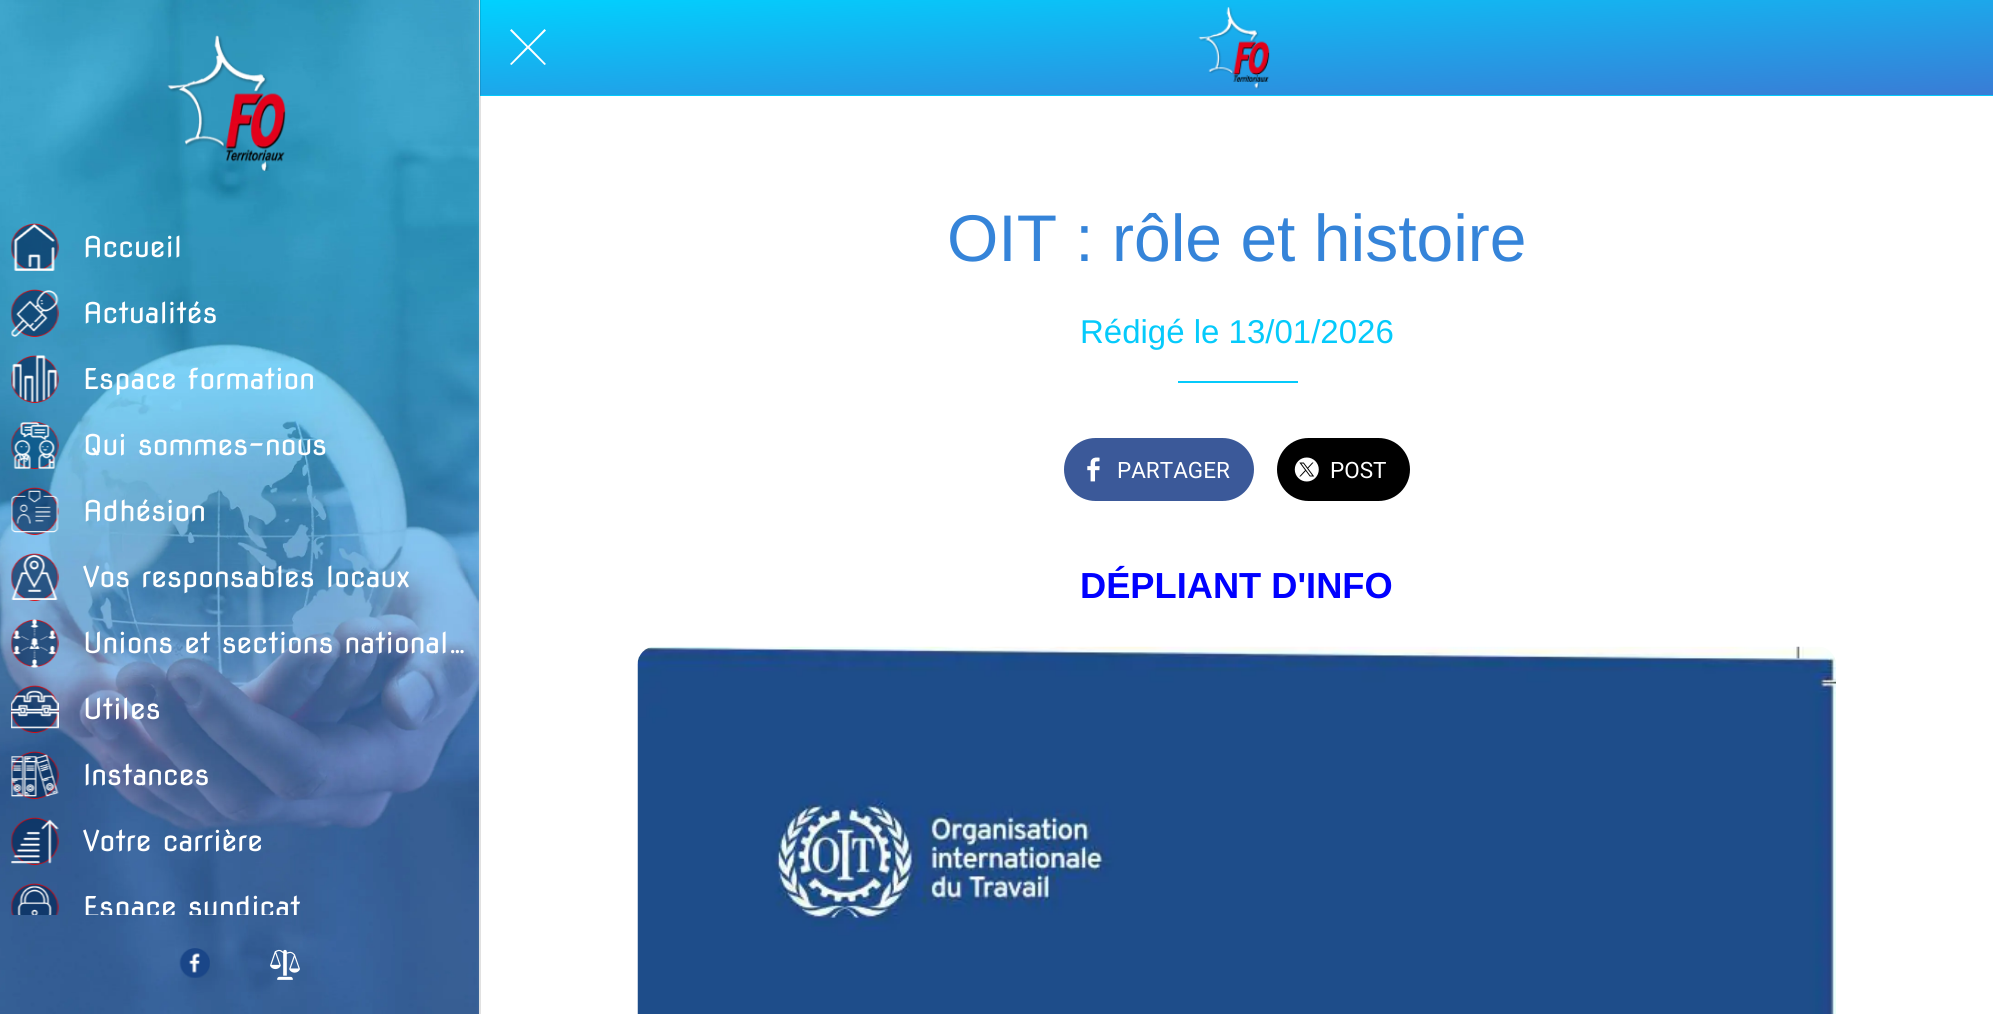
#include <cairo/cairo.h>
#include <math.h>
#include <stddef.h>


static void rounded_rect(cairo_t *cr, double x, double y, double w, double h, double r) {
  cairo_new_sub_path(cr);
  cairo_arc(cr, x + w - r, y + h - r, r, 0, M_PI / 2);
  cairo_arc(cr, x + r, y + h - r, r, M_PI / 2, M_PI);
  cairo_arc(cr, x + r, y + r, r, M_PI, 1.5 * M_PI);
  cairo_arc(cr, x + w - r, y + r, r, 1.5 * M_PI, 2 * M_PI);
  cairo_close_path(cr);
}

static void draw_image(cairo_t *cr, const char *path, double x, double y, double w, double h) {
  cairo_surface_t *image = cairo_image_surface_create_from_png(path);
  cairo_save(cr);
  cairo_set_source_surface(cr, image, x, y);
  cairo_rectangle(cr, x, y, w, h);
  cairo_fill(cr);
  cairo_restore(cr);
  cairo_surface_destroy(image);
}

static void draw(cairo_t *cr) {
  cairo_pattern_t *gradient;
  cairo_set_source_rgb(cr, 1, 1, 1);
  cairo_paint(cr);
  gradient = cairo_pattern_create_linear(1231, -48, 1243, 144);
  cairo_pattern_add_color_stop_rgba(gradient, 0, 0, 210 / 255.0, 1, 1);
  cairo_pattern_add_color_stop_rgba(gradient, 1, 58 / 255.0, 123 / 255.0, 213 / 255.0, 1);
  cairo_set_source(cr, gradient);
  cairo_pattern_destroy(gradient);
  cairo_rectangle(cr, 480, 0, 1513, 95);
  cairo_fill(cr);
  cairo_set_source_rgb(cr, 5 / 255.0, 202 / 255.0, 251 / 255.0);
  cairo_rectangle(cr, 480, 95, 1513, 1);
  cairo_fill(cr);
  cairo_set_source_rgba(cr, 0, 0, 0, 0.12);
  cairo_rectangle(cr, 479, 0, 2, 1014);
  cairo_fill(cr);
  draw_image(cr, "images/1.png", 0, 0, 479, 1014);
  draw_image(cr, "images/2.png", 167, 35, 119, 136);
  draw_image(cr, "images/3.png", 11, 223, 48, 48);
  draw_image(cr, "images/4.png", 11, 289, 48, 48);
  draw_image(cr, "images/5.png", 11, 355, 48, 48);
  draw_image(cr, "images/6.png", 11, 421, 48, 48);
  draw_image(cr, "images/7.png", 11, 487, 48, 48);
  draw_image(cr, "images/8.png", 11, 553, 48, 48);
  draw_image(cr, "images/9.png", 11, 619, 48, 49);
  draw_image(cr, "images/10.png", 11, 685, 48, 48);
  draw_image(cr, "images/11.png", 11, 751, 48, 48);
  draw_image(cr, "images/12.png", 11, 817, 48, 48);
  draw_image(cr, "images/13.png", 11, 883, 48, 32);
  draw_image(cr, "images/14.png", 179, 948, 31, 30);
  draw_image(cr, "images/15.png", 270, 949, 30, 31);
  cairo_set_source_rgb(cr, 1, 1, 1);
  cairo_new_path(cr);
  cairo_move_to(cr, 546, 30.5);
  cairo_line_to(cr, 544.5, 29);
  cairo_line_to(cr, 528, 46);
  cairo_line_to(cr, 511.5, 29);
  cairo_line_to(cr, 510, 30.5);
  cairo_line_to(cr, 526.5, 47);
  cairo_line_to(cr, 510, 64);
  cairo_line_to(cr, 511.5, 65);
  cairo_line_to(cr, 528, 48.5);
  cairo_line_to(cr, 544.5, 65);
  cairo_line_to(cr, 546, 64);
  cairo_line_to(cr, 529.5, 47);
  cairo_close_path(cr);
  cairo_fill(cr);
  draw_image(cr, "images/16.png", 1198, 7, 72, 82);
  cairo_set_source_rgb(cr, 5 / 255.0, 202 / 255.0, 251 / 255.0);
  cairo_rectangle(cr, 1178, 381, 120, 2);
  cairo_fill(cr);
  cairo_set_source_rgb(cr, 59 / 255.0, 89 / 255.0, 153 / 255.0);
  rounded_rect(cr, 1064, 438, 190, 63, 31.5);
  cairo_fill(cr);
  draw_image(cr, "images/17.png", 1087, 457, 13, 25);
  cairo_set_source_rgb(cr, 0, 0, 0);
  rounded_rect(cr, 1277, 438, 133, 63, 31.5);
  cairo_fill(cr);
  draw_image(cr, "images/18.png", 1294, 457, 25, 25);
  draw_image(cr, "images/19.png", 637, 646, 1199, 368);
  cairo_select_font_face(cr, "Nova Flat", CAIRO_FONT_SLANT_NORMAL, CAIRO_FONT_WEIGHT_NORMAL);
  cairo_set_font_size(cr, 28.5);
  cairo_set_source_rgb(cr, 1, 1, 1);
  cairo_move_to(cr, 83, 257);
  cairo_show_text(cr, "Accueil");
  cairo_move_to(cr, 83, 323);
  cairo_show_text(cr, "Actualités");
  cairo_move_to(cr, 83, 389);
  cairo_show_text(cr, "Espace formation");
  cairo_move_to(cr, 83, 455);
  cairo_show_text(cr, "Qui sommes-nous");
  cairo_move_to(cr, 83, 521);
  cairo_show_text(cr, "Adhésion");
  cairo_move_to(cr, 83, 587);
  cairo_show_text(cr, "Vos responsables locaux");
  cairo_move_to(cr, 83, 653);
  cairo_show_text(cr, "Unions et sections national…");
  cairo_move_to(cr, 83, 719);
  cairo_show_text(cr, "Utiles");
  cairo_move_to(cr, 83, 785);
  cairo_show_text(cr, "Instances");
  cairo_move_to(cr, 83, 851);
  cairo_show_text(cr, "Votre carrière");
  cairo_save(cr);
  cairo_rectangle(cr, 83, 890, 217, 25);
  cairo_clip(cr);
  cairo_move_to(cr, 83, 917);
  cairo_show_text(cr, "Espace syndicat");
  cairo_restore(cr);
  cairo_select_font_face(cr, "Liberation Sans", CAIRO_FONT_SLANT_NORMAL, CAIRO_FONT_WEIGHT_NORMAL);
  cairo_set_font_size(cr, 66);
  cairo_set_source_rgb(cr, 53 / 255.0, 132 / 255.0, 217 / 255.0);
  cairo_move_to(cr, 947, 261);
  cairo_show_text(cr, "OIT : rôle et histoire");
  cairo_set_font_size(cr, 33);
  cairo_set_source_rgb(cr, 5 / 255.0, 202 / 255.0, 251 / 255.0);
  cairo_move_to(cr, 1080, 343);
  cairo_show_text(cr, "Rédigé le 13/01/2026");
  cairo_select_font_face(cr, "Roboto", CAIRO_FONT_SLANT_NORMAL, CAIRO_FONT_WEIGHT_NORMAL);
  cairo_set_font_size(cr, 22.5);
  cairo_set_source_rgb(cr, 1, 1, 1);
  cairo_move_to(cr, 1117, 478);
  cairo_show_text(cr, "PARTAGER");
  cairo_move_to(cr, 1330, 478);
  cairo_show_text(cr, "POST");
  cairo_select_font_face(cr, "Liberation Sans", CAIRO_FONT_SLANT_NORMAL, CAIRO_FONT_WEIGHT_BOLD);
  cairo_set_font_size(cr, 36.25);
  cairo_set_source_rgb(cr, 0, 0, 1);
  cairo_move_to(cr, 1080, 598);
  cairo_show_text(cr, "DÉPLIANT D'INFO");
}

int main(void) {
  cairo_surface_t *surface = cairo_image_surface_create(CAIRO_FORMAT_RGB24, 1993, 1014);
  cairo_t *cr = cairo_create(surface);
  cairo_font_options_t *options = cairo_font_options_create();
  cairo_font_options_set_hint_metrics(options, CAIRO_HINT_METRICS_OFF);
  cairo_font_options_set_hint_style(options, CAIRO_HINT_STYLE_NONE);
  cairo_set_font_options(cr, options);
  cairo_set_miter_limit(cr, 4);
  draw(cr);
  cairo_surface_write_to_png(surface, "out.png");
  cairo_font_options_destroy(options);
  cairo_destroy(cr);
  cairo_surface_destroy(surface);
  return 0;
}
